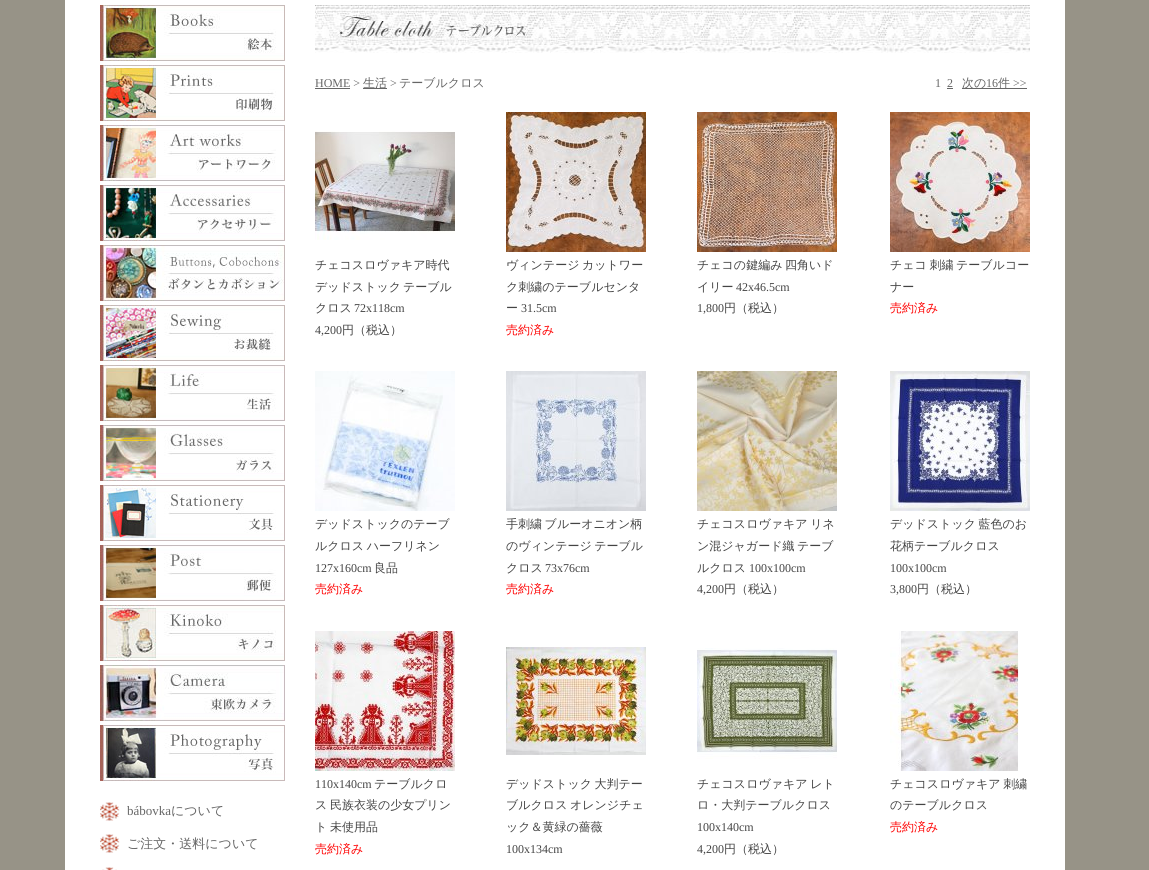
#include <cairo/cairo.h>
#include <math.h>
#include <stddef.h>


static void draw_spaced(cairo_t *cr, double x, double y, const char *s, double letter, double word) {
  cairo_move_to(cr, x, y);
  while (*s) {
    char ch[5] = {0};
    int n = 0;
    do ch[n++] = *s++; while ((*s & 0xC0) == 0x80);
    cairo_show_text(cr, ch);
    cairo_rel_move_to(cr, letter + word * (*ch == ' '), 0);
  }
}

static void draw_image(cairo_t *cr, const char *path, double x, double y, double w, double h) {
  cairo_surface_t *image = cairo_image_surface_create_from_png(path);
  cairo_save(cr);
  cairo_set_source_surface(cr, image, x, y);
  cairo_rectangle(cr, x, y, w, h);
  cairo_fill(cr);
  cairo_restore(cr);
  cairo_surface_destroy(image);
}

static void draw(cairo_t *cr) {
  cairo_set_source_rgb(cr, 151 / 255.0, 147 / 255.0, 135 / 255.0);
  cairo_paint(cr);
  cairo_set_source_rgb(cr, 1, 1, 1);
  cairo_rectangle(cr, 65, 0, 1000, 870);
  cairo_fill(cr);
  draw_image(cr, "images/1.png", 100, 5, 185, 56);
  draw_image(cr, "images/2.png", 100, 65, 185, 56);
  draw_image(cr, "images/3.png", 100, 125, 185, 56);
  draw_image(cr, "images/4.png", 100, 185, 185, 56);
  draw_image(cr, "images/5.png", 100, 245, 185, 56);
  draw_image(cr, "images/6.png", 100, 305, 185, 56);
  draw_image(cr, "images/7.png", 100, 365, 185, 56);
  draw_image(cr, "images/8.png", 100, 425, 185, 56);
  draw_image(cr, "images/9.png", 100, 485, 185, 56);
  draw_image(cr, "images/10.png", 100, 545, 185, 56);
  draw_image(cr, "images/11.png", 100, 605, 185, 56);
  draw_image(cr, "images/12.png", 100, 665, 185, 56);
  draw_image(cr, "images/13.png", 100, 725, 185, 56);
  draw_image(cr, "images/14.png", 100, 802, 20, 19);
  draw_image(cr, "images/14.png", 100, 834, 20, 19);
  draw_image(cr, "images/15.png", 102, 867, 15, 3);
  draw_image(cr, "images/16.png", 315, 5, 715, 48);
  cairo_set_source_rgb(cr, 102 / 255.0, 102 / 255.0, 102 / 255.0);
  cairo_rectangle(cr, 315, 88, 35, 1);
  cairo_fill(cr);
  cairo_rectangle(cr, 363, 88, 24, 1);
  cairo_fill(cr);
  cairo_rectangle(cr, 947, 88, 6, 1);
  cairo_fill(cr);
  cairo_rectangle(cr, 962, 88, 65, 1);
  cairo_fill(cr);
  draw_image(cr, "images/17.png", 315, 131, 140, 109);
  draw_image(cr, "images/18.png", 506, 112, 140, 140);
  draw_image(cr, "images/19.png", 697, 112, 140, 140);
  draw_image(cr, "images/20.png", 890, 112, 140, 140);
  draw_image(cr, "images/21.png", 315, 371, 140, 140);
  draw_image(cr, "images/22.png", 506, 371, 140, 140);
  draw_image(cr, "images/23.png", 697, 371, 140, 140);
  draw_image(cr, "images/24.png", 890, 371, 140, 140);
  draw_image(cr, "images/25.png", 315, 631, 140, 140);
  draw_image(cr, "images/26.png", 506, 647, 140, 108);
  draw_image(cr, "images/27.png", 697, 648, 140, 111);
  draw_image(cr, "images/28.png", 890, 631, 129, 140);
  cairo_select_font_face(cr, "Liberation Serif", CAIRO_FONT_SLANT_NORMAL, CAIRO_FONT_WEIGHT_NORMAL);
  cairo_set_font_size(cr, 13);
  cairo_move_to(cr, 127, 815);
  cairo_show_text(cr, "bábovka");
  cairo_select_font_face(cr, "WenQuanYi Zen Hei Medium", CAIRO_FONT_SLANT_NORMAL, CAIRO_FONT_WEIGHT_NORMAL);
  cairo_move_to(cr, 171, 815);
  cairo_show_text(cr, "について");
  cairo_move_to(cr, 127, 848);
  cairo_show_text(cr, "ご注文・送料について");
  cairo_select_font_face(cr, "Liberation Serif", CAIRO_FONT_SLANT_NORMAL, CAIRO_FONT_WEIGHT_NORMAL);
  cairo_set_font_size(cr, 12);
  cairo_move_to(cr, 315, 87);
  cairo_show_text(cr, "HOME >");
  cairo_select_font_face(cr, "WenQuanYi Zen Hei Medium", CAIRO_FONT_SLANT_NORMAL, CAIRO_FONT_WEIGHT_NORMAL);
  cairo_move_to(cr, 363, 87);
  cairo_show_text(cr, "生活");
  cairo_select_font_face(cr, "Liberation Serif", CAIRO_FONT_SLANT_NORMAL, CAIRO_FONT_WEIGHT_NORMAL);
  cairo_move_to(cr, 390, 87);
  cairo_show_text(cr, ">");
  cairo_select_font_face(cr, "WenQuanYi Zen Hei Medium", CAIRO_FONT_SLANT_NORMAL, CAIRO_FONT_WEIGHT_NORMAL);
  cairo_move_to(cr, 399, 87);
  cairo_show_text(cr, "テーブルクロス");
  cairo_select_font_face(cr, "Liberation Serif", CAIRO_FONT_SLANT_NORMAL, CAIRO_FONT_WEIGHT_NORMAL);
  cairo_move_to(cr, 935, 87);
  cairo_show_text(cr, "1");
  cairo_move_to(cr, 947, 87);
  cairo_show_text(cr, "2");
  cairo_select_font_face(cr, "WenQuanYi Zen Hei Medium", CAIRO_FONT_SLANT_NORMAL, CAIRO_FONT_WEIGHT_NORMAL);
  cairo_move_to(cr, 962, 87);
  cairo_show_text(cr, "次の");
  cairo_select_font_face(cr, "Liberation Serif", CAIRO_FONT_SLANT_NORMAL, CAIRO_FONT_WEIGHT_NORMAL);
  cairo_move_to(cr, 986, 87);
  cairo_show_text(cr, "16");
  cairo_select_font_face(cr, "WenQuanYi Zen Hei Medium", CAIRO_FONT_SLANT_NORMAL, CAIRO_FONT_WEIGHT_NORMAL);
  cairo_move_to(cr, 998, 87);
  cairo_show_text(cr, "件");
  cairo_select_font_face(cr, "Liberation Serif", CAIRO_FONT_SLANT_NORMAL, CAIRO_FONT_WEIGHT_NORMAL);
  cairo_move_to(cr, 1013, 87);
  cairo_show_text(cr, ">>");
  cairo_select_font_face(cr, "WenQuanYi Zen Hei Medium", CAIRO_FONT_SLANT_NORMAL, CAIRO_FONT_WEIGHT_NORMAL);
  cairo_set_source_rgb(cr, 68 / 255.0, 68 / 255.0, 68 / 255.0);
  cairo_move_to(cr, 315, 269);
  cairo_show_text(cr, "チェコスロヴァキア時代");
  cairo_move_to(cr, 315, 291);
  cairo_show_text(cr, "デッドストック");
  cairo_move_to(cr, 403, 291);
  cairo_show_text(cr, "テーブル");
  cairo_move_to(cr, 315, 312);
  cairo_show_text(cr, "クロス");
  cairo_select_font_face(cr, "Liberation Serif", CAIRO_FONT_SLANT_NORMAL, CAIRO_FONT_WEIGHT_NORMAL);
  cairo_move_to(cr, 354, 312);
  cairo_show_text(cr, "72x118cm");
  cairo_move_to(cr, 315, 334);
  cairo_show_text(cr, "4,200");
  cairo_select_font_face(cr, "WenQuanYi Zen Hei Medium", CAIRO_FONT_SLANT_NORMAL, CAIRO_FONT_WEIGHT_NORMAL);
  cairo_move_to(cr, 342, 334);
  cairo_show_text(cr, "円（税込）");
  draw_spaced(cr, 506, 269, "ヴィンテージ カットワー", 0, -1);
  cairo_move_to(cr, 506, 291);
  cairo_show_text(cr, "ク刺繍のテーブルセンタ");
  cairo_move_to(cr, 506, 312);
  cairo_show_text(cr, "ー");
  cairo_select_font_face(cr, "Liberation Serif", CAIRO_FONT_SLANT_NORMAL, CAIRO_FONT_WEIGHT_NORMAL);
  cairo_move_to(cr, 521, 312);
  cairo_show_text(cr, "31.5cm");
  cairo_select_font_face(cr, "WenQuanYi Zen Hei Medium", CAIRO_FONT_SLANT_NORMAL, CAIRO_FONT_WEIGHT_NORMAL);
  cairo_set_source_rgb(cr, 1, 0, 0);
  cairo_move_to(cr, 506, 334);
  cairo_show_text(cr, "売約済み");
  cairo_set_source_rgb(cr, 68 / 255.0, 68 / 255.0, 68 / 255.0);
  draw_spaced(cr, 697, 269, "チェコの鍵編み 四角いド", 0, -1);
  cairo_move_to(cr, 697, 291);
  cairo_show_text(cr, "イリー");
  cairo_select_font_face(cr, "Liberation Serif", CAIRO_FONT_SLANT_NORMAL, CAIRO_FONT_WEIGHT_NORMAL);
  cairo_move_to(cr, 736, 291);
  cairo_show_text(cr, "42x46.5cm");
  cairo_move_to(cr, 697, 312);
  cairo_show_text(cr, "1,800");
  cairo_select_font_face(cr, "WenQuanYi Zen Hei Medium", CAIRO_FONT_SLANT_NORMAL, CAIRO_FONT_WEIGHT_NORMAL);
  cairo_move_to(cr, 724, 312);
  cairo_show_text(cr, "円（税込）");
  draw_spaced(cr, 890, 269, "チェコ 刺繍 テーブルコー", 0, -1);
  cairo_move_to(cr, 890, 291);
  cairo_show_text(cr, "ナー");
  cairo_set_source_rgb(cr, 1, 0, 0);
  cairo_move_to(cr, 890, 312);
  cairo_show_text(cr, "売約済み");
  cairo_set_source_rgb(cr, 68 / 255.0, 68 / 255.0, 68 / 255.0);
  cairo_move_to(cr, 315, 528);
  cairo_show_text(cr, "デッドストックのテーブ");
  draw_spaced(cr, 315, 550, "ルクロス ハーフリネン", 0, -1);
  cairo_select_font_face(cr, "Liberation Serif", CAIRO_FONT_SLANT_NORMAL, CAIRO_FONT_WEIGHT_NORMAL);
  cairo_move_to(cr, 315, 572);
  cairo_show_text(cr, "127x160cm");
  cairo_select_font_face(cr, "WenQuanYi Zen Hei Medium", CAIRO_FONT_SLANT_NORMAL, CAIRO_FONT_WEIGHT_NORMAL);
  cairo_move_to(cr, 374, 572);
  cairo_show_text(cr, "良品");
  cairo_set_source_rgb(cr, 1, 0, 0);
  cairo_move_to(cr, 315, 593);
  cairo_show_text(cr, "売約済み");
  cairo_set_source_rgb(cr, 68 / 255.0, 68 / 255.0, 68 / 255.0);
  draw_spaced(cr, 506, 528, "手刺繍 ブルーオニオン柄", 0, -1);
  draw_spaced(cr, 506, 550, "のヴィンテージ テーブル", 0, -1);
  cairo_move_to(cr, 506, 572);
  cairo_show_text(cr, "クロス");
  cairo_select_font_face(cr, "Liberation Serif", CAIRO_FONT_SLANT_NORMAL, CAIRO_FONT_WEIGHT_NORMAL);
  cairo_move_to(cr, 545, 572);
  cairo_show_text(cr, "73x76cm");
  cairo_select_font_face(cr, "WenQuanYi Zen Hei Medium", CAIRO_FONT_SLANT_NORMAL, CAIRO_FONT_WEIGHT_NORMAL);
  cairo_set_source_rgb(cr, 1, 0, 0);
  cairo_move_to(cr, 506, 593);
  cairo_show_text(cr, "売約済み");
  cairo_set_source_rgb(cr, 68 / 255.0, 68 / 255.0, 68 / 255.0);
  draw_spaced(cr, 697, 528, "チェコスロヴァキア リネ", 0, -1);
  draw_spaced(cr, 697, 550, "ン混ジャガード織 テーブ", 0, -1);
  cairo_move_to(cr, 697, 572);
  cairo_show_text(cr, "ルクロス");
  cairo_select_font_face(cr, "Liberation Serif", CAIRO_FONT_SLANT_NORMAL, CAIRO_FONT_WEIGHT_NORMAL);
  cairo_move_to(cr, 749, 572);
  cairo_show_text(cr, "100x100cm");
  cairo_move_to(cr, 697, 593);
  cairo_show_text(cr, "4,200");
  cairo_select_font_face(cr, "WenQuanYi Zen Hei Medium", CAIRO_FONT_SLANT_NORMAL, CAIRO_FONT_WEIGHT_NORMAL);
  cairo_move_to(cr, 724, 593);
  cairo_show_text(cr, "円（税込）");
  draw_spaced(cr, 890, 528, "デッドストック 藍色のお", 0, -1);
  cairo_move_to(cr, 890, 550);
  cairo_show_text(cr, "花柄テーブルクロス");
  cairo_select_font_face(cr, "Liberation Serif", CAIRO_FONT_SLANT_NORMAL, CAIRO_FONT_WEIGHT_NORMAL);
  cairo_move_to(cr, 890, 572);
  cairo_show_text(cr, "100x100cm");
  cairo_move_to(cr, 890, 593);
  cairo_show_text(cr, "3,800");
  cairo_select_font_face(cr, "WenQuanYi Zen Hei Medium", CAIRO_FONT_SLANT_NORMAL, CAIRO_FONT_WEIGHT_NORMAL);
  cairo_move_to(cr, 917, 593);
  cairo_show_text(cr, "円（税込）");
  cairo_select_font_face(cr, "Liberation Serif", CAIRO_FONT_SLANT_NORMAL, CAIRO_FONT_WEIGHT_NORMAL);
  cairo_move_to(cr, 315, 788);
  cairo_show_text(cr, "110x140cm");
  cairo_select_font_face(cr, "WenQuanYi Zen Hei Medium", CAIRO_FONT_SLANT_NORMAL, CAIRO_FONT_WEIGHT_NORMAL);
  cairo_move_to(cr, 374, 788);
  cairo_show_text(cr, "テーブルクロ");
  draw_spaced(cr, 315, 809, "ス 民族衣装の少女プリン", 0, -1);
  draw_spaced(cr, 315, 831, "ト 未使用品", 0, -1);
  cairo_set_source_rgb(cr, 1, 0, 0);
  cairo_move_to(cr, 315, 853);
  cairo_show_text(cr, "売約済み");
  cairo_set_source_rgb(cr, 68 / 255.0, 68 / 255.0, 68 / 255.0);
  draw_spaced(cr, 506, 788, "デッドストック 大判テー", 0, -1);
  draw_spaced(cr, 506, 809, "ブルクロス オレンジチェ", 0, -1);
  cairo_move_to(cr, 506, 831);
  cairo_show_text(cr, "ック＆黄緑の薔薇");
  cairo_select_font_face(cr, "Liberation Serif", CAIRO_FONT_SLANT_NORMAL, CAIRO_FONT_WEIGHT_NORMAL);
  cairo_move_to(cr, 506, 853);
  cairo_show_text(cr, "100x134cm");
  cairo_select_font_face(cr, "WenQuanYi Zen Hei Medium", CAIRO_FONT_SLANT_NORMAL, CAIRO_FONT_WEIGHT_NORMAL);
  draw_spaced(cr, 697, 788, "チェコスロヴァキア レト", 0, -1);
  cairo_move_to(cr, 697, 809);
  cairo_show_text(cr, "ロ・大判テーブルクロス");
  cairo_select_font_face(cr, "Liberation Serif", CAIRO_FONT_SLANT_NORMAL, CAIRO_FONT_WEIGHT_NORMAL);
  cairo_move_to(cr, 697, 831);
  cairo_show_text(cr, "100x140cm");
  cairo_move_to(cr, 697, 853);
  cairo_show_text(cr, "4,200");
  cairo_select_font_face(cr, "WenQuanYi Zen Hei Medium", CAIRO_FONT_SLANT_NORMAL, CAIRO_FONT_WEIGHT_NORMAL);
  cairo_move_to(cr, 724, 853);
  cairo_show_text(cr, "円（税込）");
  draw_spaced(cr, 890, 788, "チェコスロヴァキア 刺繍", 0, -1);
  cairo_move_to(cr, 890, 809);
  cairo_show_text(cr, "のテーブルクロス");
  cairo_set_source_rgb(cr, 1, 0, 0);
  cairo_move_to(cr, 890, 831);
  cairo_show_text(cr, "売約済み");
}

int main(void) {
  cairo_surface_t *surface = cairo_image_surface_create(CAIRO_FORMAT_RGB24, 1149, 870);
  cairo_t *cr = cairo_create(surface);
  cairo_font_options_t *options = cairo_font_options_create();
  cairo_font_options_set_hint_metrics(options, CAIRO_HINT_METRICS_OFF);
  cairo_font_options_set_hint_style(options, CAIRO_HINT_STYLE_NONE);
  cairo_set_font_options(cr, options);
  cairo_set_miter_limit(cr, 4);
  draw(cr);
  cairo_surface_write_to_png(surface, "out.png");
  cairo_font_options_destroy(options);
  cairo_destroy(cr);
  cairo_surface_destroy(surface);
  return 0;
}
